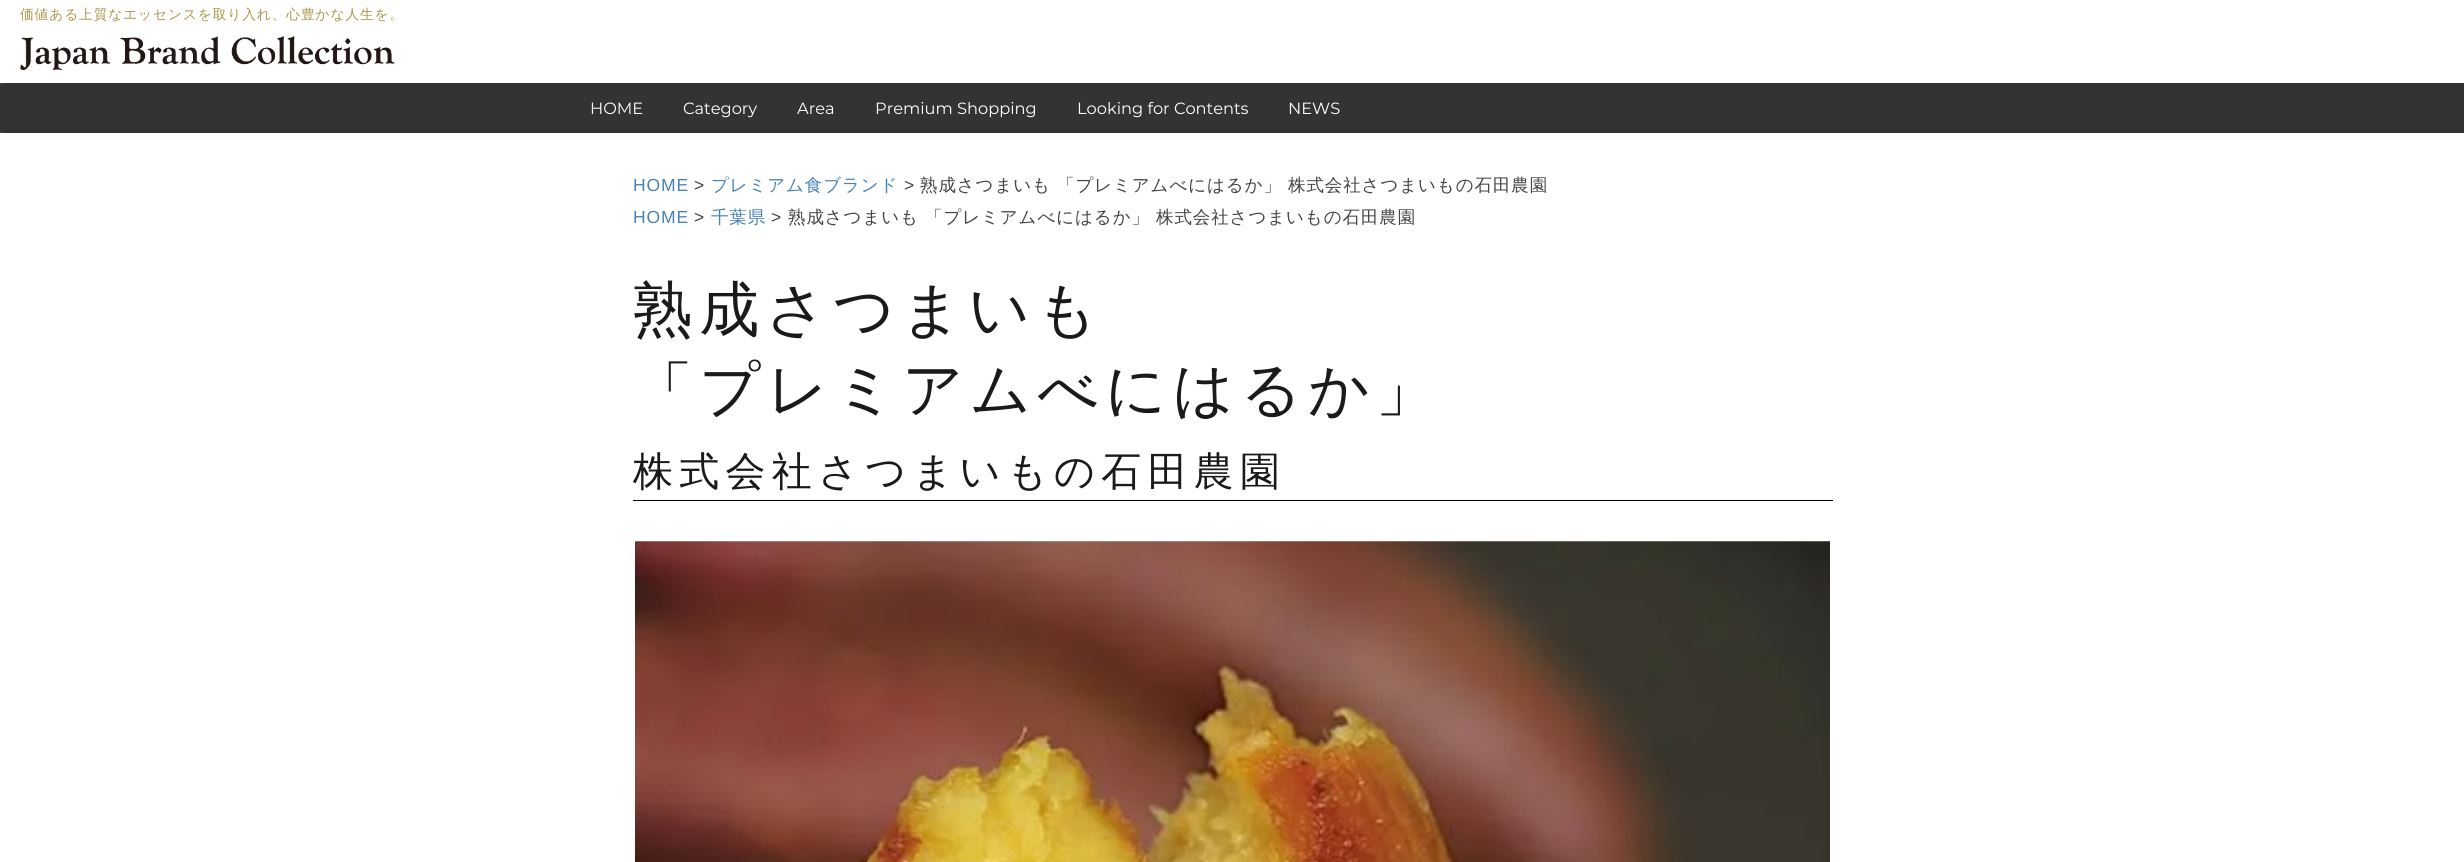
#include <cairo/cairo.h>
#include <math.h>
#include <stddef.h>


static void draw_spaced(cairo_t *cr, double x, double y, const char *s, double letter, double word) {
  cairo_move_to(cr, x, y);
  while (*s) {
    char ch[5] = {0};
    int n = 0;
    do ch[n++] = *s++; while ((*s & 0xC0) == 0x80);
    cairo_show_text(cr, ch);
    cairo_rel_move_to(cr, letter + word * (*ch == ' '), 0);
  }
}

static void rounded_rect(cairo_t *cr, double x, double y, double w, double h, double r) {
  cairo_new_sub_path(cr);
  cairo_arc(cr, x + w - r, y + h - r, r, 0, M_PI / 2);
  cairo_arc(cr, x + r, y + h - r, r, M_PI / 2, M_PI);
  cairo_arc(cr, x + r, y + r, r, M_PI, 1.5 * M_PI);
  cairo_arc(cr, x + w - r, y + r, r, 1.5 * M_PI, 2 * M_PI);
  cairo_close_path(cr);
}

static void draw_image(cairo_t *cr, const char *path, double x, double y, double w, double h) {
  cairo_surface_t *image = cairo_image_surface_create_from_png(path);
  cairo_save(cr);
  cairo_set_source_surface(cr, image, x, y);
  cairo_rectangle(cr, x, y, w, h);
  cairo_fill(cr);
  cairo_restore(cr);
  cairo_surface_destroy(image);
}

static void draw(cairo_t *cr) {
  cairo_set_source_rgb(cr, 1, 1, 1);
  cairo_paint(cr);
  draw_image(cr, "images/1.png", 20, 36, 375, 34);
  cairo_set_source_rgb(cr, 51 / 255.0, 51 / 255.0, 51 / 255.0);
  rounded_rect(cr, 0, 83, 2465, 50, 1);
  cairo_fill(cr);
  cairo_set_source_rgb(cr, 0, 0, 0);
  cairo_rectangle(cr, 633, 500, 1200, 1);
  cairo_fill(cr);
  draw_image(cr, "images/2.png", 635, 541, 1195, 321);
  cairo_select_font_face(cr, "WenQuanYi Zen Hei Medium", CAIRO_FONT_SLANT_NORMAL, CAIRO_FONT_WEIGHT_NORMAL);
  cairo_set_font_size(cr, 13.75);
  cairo_set_source_rgb(cr, 170 / 255.0, 150 / 255.0, 73 / 255.0);
  draw_spaced(cr, 20, 19, "価値ある上質なエッセンスを取り入れ、心豊かな人生を。", 0.85, 0);
  cairo_select_font_face(cr, "Montserrat", CAIRO_FONT_SLANT_NORMAL, CAIRO_FONT_WEIGHT_NORMAL);
  cairo_set_font_size(cr, 16.25);
  cairo_set_source_rgb(cr, 1, 1, 1);
  cairo_move_to(cr, 590, 114);
  cairo_show_text(cr, "HOME");
  cairo_move_to(cr, 683, 114);
  cairo_show_text(cr, "Category");
  cairo_move_to(cr, 797, 114);
  cairo_show_text(cr, "Area");
  cairo_move_to(cr, 875, 114);
  cairo_show_text(cr, "Premium Shopping");
  cairo_move_to(cr, 1077, 114);
  cairo_show_text(cr, "Looking for Contents");
  cairo_move_to(cr, 1288, 114);
  cairo_show_text(cr, "NEWS");
  cairo_select_font_face(cr, "Liberation Sans", CAIRO_FONT_SLANT_NORMAL, CAIRO_FONT_WEIGHT_NORMAL);
  cairo_set_font_size(cr, 17.5);
  cairo_set_source_rgb(cr, 70 / 255.0, 130 / 255.0, 180 / 255.0);
  draw_spaced(cr, 633, 191, "HOME", 0.85, 0);
  cairo_set_source_rgb(cr, 68 / 255.0, 68 / 255.0, 68 / 255.0);
  draw_spaced(cr, 694, 191, ">", 0.85, 0);
  cairo_select_font_face(cr, "WenQuanYi Zen Hei Medium", CAIRO_FONT_SLANT_NORMAL, CAIRO_FONT_WEIGHT_NORMAL);
  cairo_set_source_rgb(cr, 70 / 255.0, 130 / 255.0, 180 / 255.0);
  draw_spaced(cr, 711, 191, "プレミアム食ブランド", 0.85, 0);
  cairo_select_font_face(cr, "Liberation Sans", CAIRO_FONT_SLANT_NORMAL, CAIRO_FONT_WEIGHT_NORMAL);
  cairo_set_source_rgb(cr, 68 / 255.0, 68 / 255.0, 68 / 255.0);
  draw_spaced(cr, 904, 191, ">", 0.9, 0);
  cairo_select_font_face(cr, "WenQuanYi Zen Hei Medium", CAIRO_FONT_SLANT_NORMAL, CAIRO_FONT_WEIGHT_NORMAL);
  draw_spaced(cr, 920, 191, "熟成さつまいも 「プレミアムべにはるか」 株式会社さつまいもの石田農園", 0.9, 0);
  cairo_select_font_face(cr, "Liberation Sans", CAIRO_FONT_SLANT_NORMAL, CAIRO_FONT_WEIGHT_NORMAL);
  cairo_set_source_rgb(cr, 70 / 255.0, 130 / 255.0, 180 / 255.0);
  draw_spaced(cr, 633, 223, "HOME", 0.85, 0);
  cairo_set_source_rgb(cr, 68 / 255.0, 68 / 255.0, 68 / 255.0);
  draw_spaced(cr, 694, 223, ">", 0.85, 0);
  cairo_select_font_face(cr, "WenQuanYi Zen Hei Medium", CAIRO_FONT_SLANT_NORMAL, CAIRO_FONT_WEIGHT_NORMAL);
  cairo_set_source_rgb(cr, 70 / 255.0, 130 / 255.0, 180 / 255.0);
  draw_spaced(cr, 711, 223, "千葉県", 0.85, 0);
  cairo_select_font_face(cr, "Liberation Sans", CAIRO_FONT_SLANT_NORMAL, CAIRO_FONT_WEIGHT_NORMAL);
  cairo_set_source_rgb(cr, 68 / 255.0, 68 / 255.0, 68 / 255.0);
  draw_spaced(cr, 771, 223, ">", 0.9, 0);
  cairo_select_font_face(cr, "WenQuanYi Zen Hei Medium", CAIRO_FONT_SLANT_NORMAL, CAIRO_FONT_WEIGHT_NORMAL);
  draw_spaced(cr, 788, 223, "熟成さつまいも 「プレミアムべにはるか」 株式会社さつまいもの石田農園", 0.9, 0);
  cairo_set_font_size(cr, 60);
  cairo_set_source_rgb(cr, 26 / 255.0, 26 / 255.0, 26 / 255.0);
  draw_spaced(cr, 633, 330, "熟成さつまいも", 6.25, 0);
  draw_spaced(cr, 633, 410, "「プレミアムべにはるか」", 6.25, 0);
  cairo_set_font_size(cr, 40);
  draw_spaced(cr, 633, 485, "株式会社さつまいもの石田農園", 6.25, 0);
}

int main(void) {
  cairo_surface_t *surface = cairo_image_surface_create(CAIRO_FORMAT_RGB24, 2464, 862);
  cairo_t *cr = cairo_create(surface);
  cairo_font_options_t *options = cairo_font_options_create();
  cairo_font_options_set_hint_metrics(options, CAIRO_HINT_METRICS_OFF);
  cairo_font_options_set_hint_style(options, CAIRO_HINT_STYLE_NONE);
  cairo_set_font_options(cr, options);
  cairo_set_miter_limit(cr, 4);
  draw(cr);
  cairo_surface_write_to_png(surface, "out.png");
  cairo_font_options_destroy(options);
  cairo_destroy(cr);
  cairo_surface_destroy(surface);
  return 0;
}
